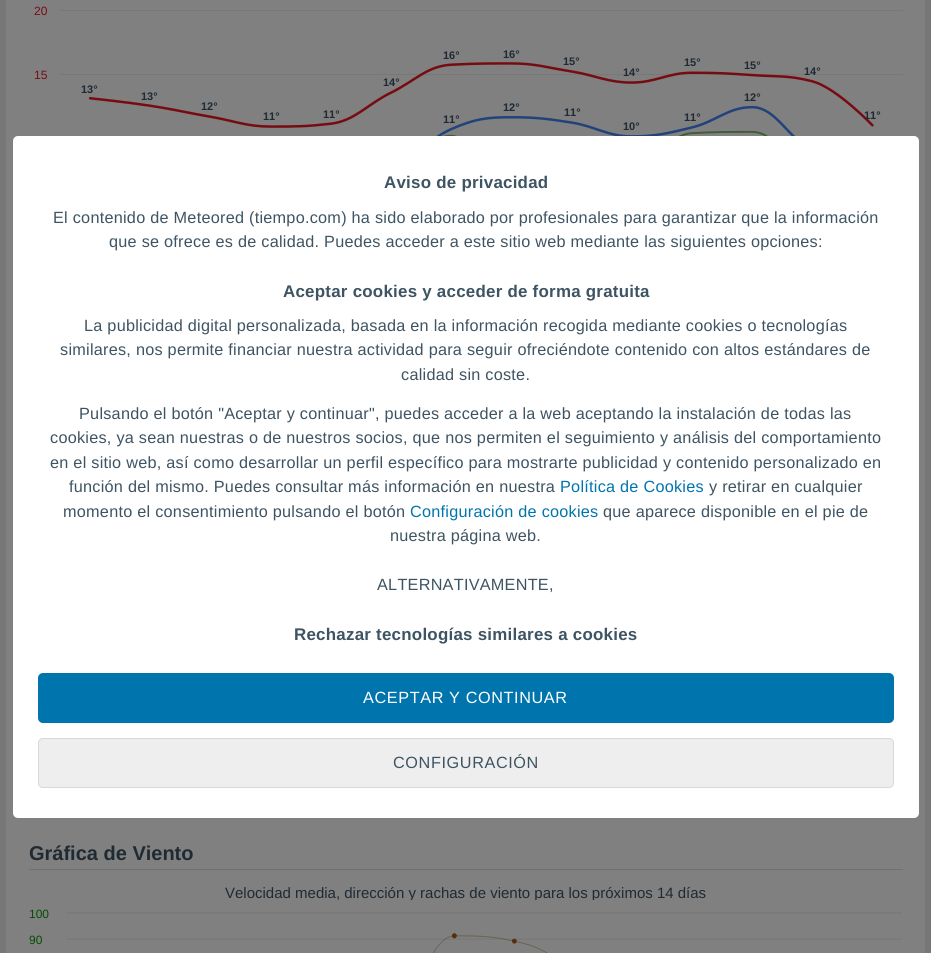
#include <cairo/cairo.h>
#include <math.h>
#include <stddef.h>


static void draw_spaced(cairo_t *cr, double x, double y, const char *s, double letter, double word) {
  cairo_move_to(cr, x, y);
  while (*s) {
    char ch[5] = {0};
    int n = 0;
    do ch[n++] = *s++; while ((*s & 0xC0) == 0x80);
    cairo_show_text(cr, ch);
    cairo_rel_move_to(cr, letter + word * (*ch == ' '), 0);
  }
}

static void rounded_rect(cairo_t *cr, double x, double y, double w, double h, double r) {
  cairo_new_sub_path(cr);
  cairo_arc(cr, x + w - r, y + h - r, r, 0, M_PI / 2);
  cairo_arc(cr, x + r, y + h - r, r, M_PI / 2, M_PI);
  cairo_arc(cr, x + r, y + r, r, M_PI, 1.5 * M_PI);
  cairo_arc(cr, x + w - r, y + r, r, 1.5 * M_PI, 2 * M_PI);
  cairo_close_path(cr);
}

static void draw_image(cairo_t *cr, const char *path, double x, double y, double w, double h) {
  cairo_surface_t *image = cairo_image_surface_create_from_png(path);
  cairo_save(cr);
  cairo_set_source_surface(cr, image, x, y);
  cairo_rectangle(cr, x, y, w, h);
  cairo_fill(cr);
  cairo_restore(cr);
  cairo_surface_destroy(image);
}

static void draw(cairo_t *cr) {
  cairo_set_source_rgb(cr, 118 / 255.0, 119 / 255.0, 120 / 255.0);
  cairo_paint(cr);
  cairo_set_source_rgb(cr, 128 / 255.0, 128 / 255.0, 128 / 255.0);
  cairo_rectangle(cr, 6, 0, 919, 953);
  cairo_fill(cr);
  draw_image(cr, "images/1.png", 60, 10, 843, 126);
  cairo_set_source_rgb(cr, 110 / 255.0, 112 / 255.0, 114 / 255.0);
  cairo_rectangle(cr, 29, 869, 874, 1);
  cairo_fill(cr);
  cairo_set_source_rgb(cr, 1, 1, 1);
  rounded_rect(cr, 13, 136, 906, 682, 5);
  cairo_fill(cr);
  cairo_set_source_rgb(cr, 0, 116 / 255.0, 173 / 255.0);
  rounded_rect(cr, 38, 673, 856, 50, 5);
  cairo_fill(cr);
  cairo_set_source_rgb(cr, 238 / 255.0, 238 / 255.0, 238 / 255.0);
  rounded_rect(cr, 38.5, 738.5, 855, 49, 4.5);
  cairo_fill_preserve(cr);
  cairo_set_source_rgb(cr, 216 / 255.0, 216 / 255.0, 216 / 255.0);
  cairo_set_line_width(cr, 1);
  cairo_stroke(cr);
  cairo_select_font_face(cr, "Liberation Sans", CAIRO_FONT_SLANT_NORMAL, CAIRO_FONT_WEIGHT_NORMAL);
  cairo_set_font_size(cr, 12);
  cairo_set_source_rgb(cr, 118 / 255.0, 13 / 255.0, 18 / 255.0);
  cairo_move_to(cr, 34, 15);
  cairo_show_text(cr, "20");
  cairo_move_to(cr, 34, 79);
  cairo_show_text(cr, "15");
  cairo_select_font_face(cr, "Liberation Sans", CAIRO_FONT_SLANT_NORMAL, CAIRO_FONT_WEIGHT_BOLD);
  cairo_set_font_size(cr, 11);
  cairo_set_source_rgb(cr, 31 / 255.0, 42 / 255.0, 50 / 255.0);
  cairo_move_to(cr, 443, 59);
  cairo_show_text(cr, "16°");
  cairo_move_to(cr, 503, 58);
  cairo_show_text(cr, "16°");
  cairo_move_to(cr, 563, 65);
  cairo_show_text(cr, "15°");
  cairo_move_to(cr, 684, 66);
  cairo_show_text(cr, "15°");
  cairo_move_to(cr, 744, 69);
  cairo_show_text(cr, "15°");
  cairo_move_to(cr, 623, 76);
  cairo_show_text(cr, "14°");
  cairo_move_to(cr, 804, 75);
  cairo_show_text(cr, "14°");
  cairo_move_to(cr, 383, 86);
  cairo_show_text(cr, "14°");
  cairo_move_to(cr, 81, 93);
  cairo_show_text(cr, "13°");
  cairo_move_to(cr, 141, 100);
  cairo_show_text(cr, "13°");
  cairo_move_to(cr, 201, 110);
  cairo_show_text(cr, "12°");
  cairo_move_to(cr, 263, 120);
  cairo_show_text(cr, "11°");
  cairo_move_to(cr, 323, 118);
  cairo_show_text(cr, "11°");
  cairo_move_to(cr, 864, 119);
  cairo_show_text(cr, "11°");
  cairo_move_to(cr, 744, 101);
  cairo_show_text(cr, "12°");
  cairo_move_to(cr, 503, 111);
  cairo_show_text(cr, "12°");
  cairo_move_to(cr, 564, 116);
  cairo_show_text(cr, "11°");
  cairo_move_to(cr, 443, 123);
  cairo_show_text(cr, "11°");
  cairo_move_to(cr, 684, 121);
  cairo_show_text(cr, "11°");
  cairo_move_to(cr, 623, 130);
  cairo_show_text(cr, "10°");
  cairo_set_font_size(cr, 20);
  cairo_move_to(cr, 29, 860);
  cairo_show_text(cr, "Gráfica de Viento");
  cairo_select_font_face(cr, "Liberation Sans", CAIRO_FONT_SLANT_NORMAL, CAIRO_FONT_WEIGHT_NORMAL);
  cairo_set_font_size(cr, 15);
  cairo_move_to(cr, 225, 898);
  cairo_show_text(cr, "Velocidad media, dirección y rachas de viento para los próximos 14 días");
  cairo_set_font_size(cr, 12);
  cairo_set_source_rgb(cr, 4 / 255.0, 78 / 255.0, 4 / 255.0);
  cairo_move_to(cr, 29, 918);
  cairo_show_text(cr, "100");
  cairo_move_to(cr, 29, 944);
  cairo_show_text(cr, "90");
  draw_image(cr, "images/2.png", 66, 900, 836, 53);
  cairo_select_font_face(cr, "Liberation Sans", CAIRO_FONT_SLANT_NORMAL, CAIRO_FONT_WEIGHT_BOLD);
  cairo_set_font_size(cr, 16.9);
  cairo_set_source_rgb(cr, 62 / 255.0, 84 / 255.0, 99 / 255.0);
  draw_spaced(cr, 384, 188, "Aviso de privacidad", 0.25, 0);
  cairo_select_font_face(cr, "Liberation Sans", CAIRO_FONT_SLANT_NORMAL, CAIRO_FONT_WEIGHT_NORMAL);
  cairo_set_font_size(cr, 16.25);
  draw_spaced(cr, 53, 223, "El contenido de Meteored (tiempo.com) ha sido elaborado por profesionales para garantizar que la información", 0.25, 0);
  draw_spaced(cr, 109, 247, "que se ofrece es de calidad. Puedes acceder a este sitio web mediante las siguientes opciones:", 0.25, 0);
  cairo_select_font_face(cr, "Liberation Sans", CAIRO_FONT_SLANT_NORMAL, CAIRO_FONT_WEIGHT_BOLD);
  cairo_set_font_size(cr, 16.9);
  draw_spaced(cr, 283, 297, "Aceptar cookies y acceder de forma gratuita", 0.25, 0);
  cairo_select_font_face(cr, "Liberation Sans", CAIRO_FONT_SLANT_NORMAL, CAIRO_FONT_WEIGHT_NORMAL);
  cairo_set_font_size(cr, 16.25);
  draw_spaced(cr, 84, 331, "La publicidad digital personalizada, basada en la información recogida mediante cookies o tecnologías", 0.25, 0);
  draw_spaced(cr, 60, 355, "similares, nos permite financiar nuestra actividad para seguir ofreciéndote contenido con altos estándares de", 0.25, 0);
  draw_spaced(cr, 401, 380, "calidad sin coste.", 0.25, 0);
  draw_spaced(cr, 79, 419, "Pulsando el botón \"Aceptar y continuar\", puedes acceder a la web aceptando la instalación de todas las", 0.25, 0);
  draw_spaced(cr, 50, 443, "cookies, ya sean nuestras o de nuestros socios, que nos permiten el seguimiento y análisis del comportamiento", 0.25, 0);
  draw_spaced(cr, 50, 468, "en el sitio web, así como desarrollar un perfil específico para mostrarte publicidad y contenido personalizado en", 0.25, 0);
  draw_spaced(cr, 69, 492, "función del mismo. Puedes consultar más información en nuestra", 0.25, 0);
  cairo_set_source_rgb(cr, 0, 116 / 255.0, 173 / 255.0);
  draw_spaced(cr, 560, 492, "Política de Cookies", 0.25, 0);
  cairo_set_source_rgb(cr, 62 / 255.0, 84 / 255.0, 99 / 255.0);
  draw_spaced(cr, 709, 492, "y retirar en cualquier", 0.25, 0);
  draw_spaced(cr, 63, 517, "momento el consentimiento pulsando el botón", 0.25, 0);
  cairo_set_source_rgb(cr, 0, 116 / 255.0, 173 / 255.0);
  draw_spaced(cr, 410, 517, "Configuración de cookies", 0.25, 0);
  cairo_set_source_rgb(cr, 62 / 255.0, 84 / 255.0, 99 / 255.0);
  draw_spaced(cr, 603, 517, "que aparece disponible en el pie de", 0.25, 0);
  draw_spaced(cr, 390, 541, "nuestra página web.", 0.25, 0);
  draw_spaced(cr, 377, 590, "ALTERNATIVAMENTE,", 0.25, 0);
  cairo_select_font_face(cr, "Liberation Sans", CAIRO_FONT_SLANT_NORMAL, CAIRO_FONT_WEIGHT_BOLD);
  cairo_set_font_size(cr, 16.9);
  draw_spaced(cr, 294, 640, "Rechazar tecnologías similares a cookies", 0.25, 0);
  cairo_select_font_face(cr, "Liberation Sans", CAIRO_FONT_SLANT_NORMAL, CAIRO_FONT_WEIGHT_NORMAL);
  cairo_set_font_size(cr, 16.25);
  cairo_set_source_rgb(cr, 1, 1, 1);
  draw_spaced(cr, 363, 703, "ACEPTAR Y CONTINUAR", 0.6, 0);
  cairo_set_source_rgb(cr, 62 / 255.0, 84 / 255.0, 99 / 255.0);
  draw_spaced(cr, 393, 768, "CONFIGURACIÓN", 0.6, 0);
}

int main(void) {
  cairo_surface_t *surface = cairo_image_surface_create(CAIRO_FORMAT_RGB24, 931, 953);
  cairo_t *cr = cairo_create(surface);
  cairo_font_options_t *options = cairo_font_options_create();
  cairo_font_options_set_hint_metrics(options, CAIRO_HINT_METRICS_OFF);
  cairo_font_options_set_hint_style(options, CAIRO_HINT_STYLE_NONE);
  cairo_set_font_options(cr, options);
  cairo_set_miter_limit(cr, 4);
  draw(cr);
  cairo_surface_write_to_png(surface, "out.png");
  cairo_font_options_destroy(options);
  cairo_destroy(cr);
  cairo_surface_destroy(surface);
  return 0;
}
